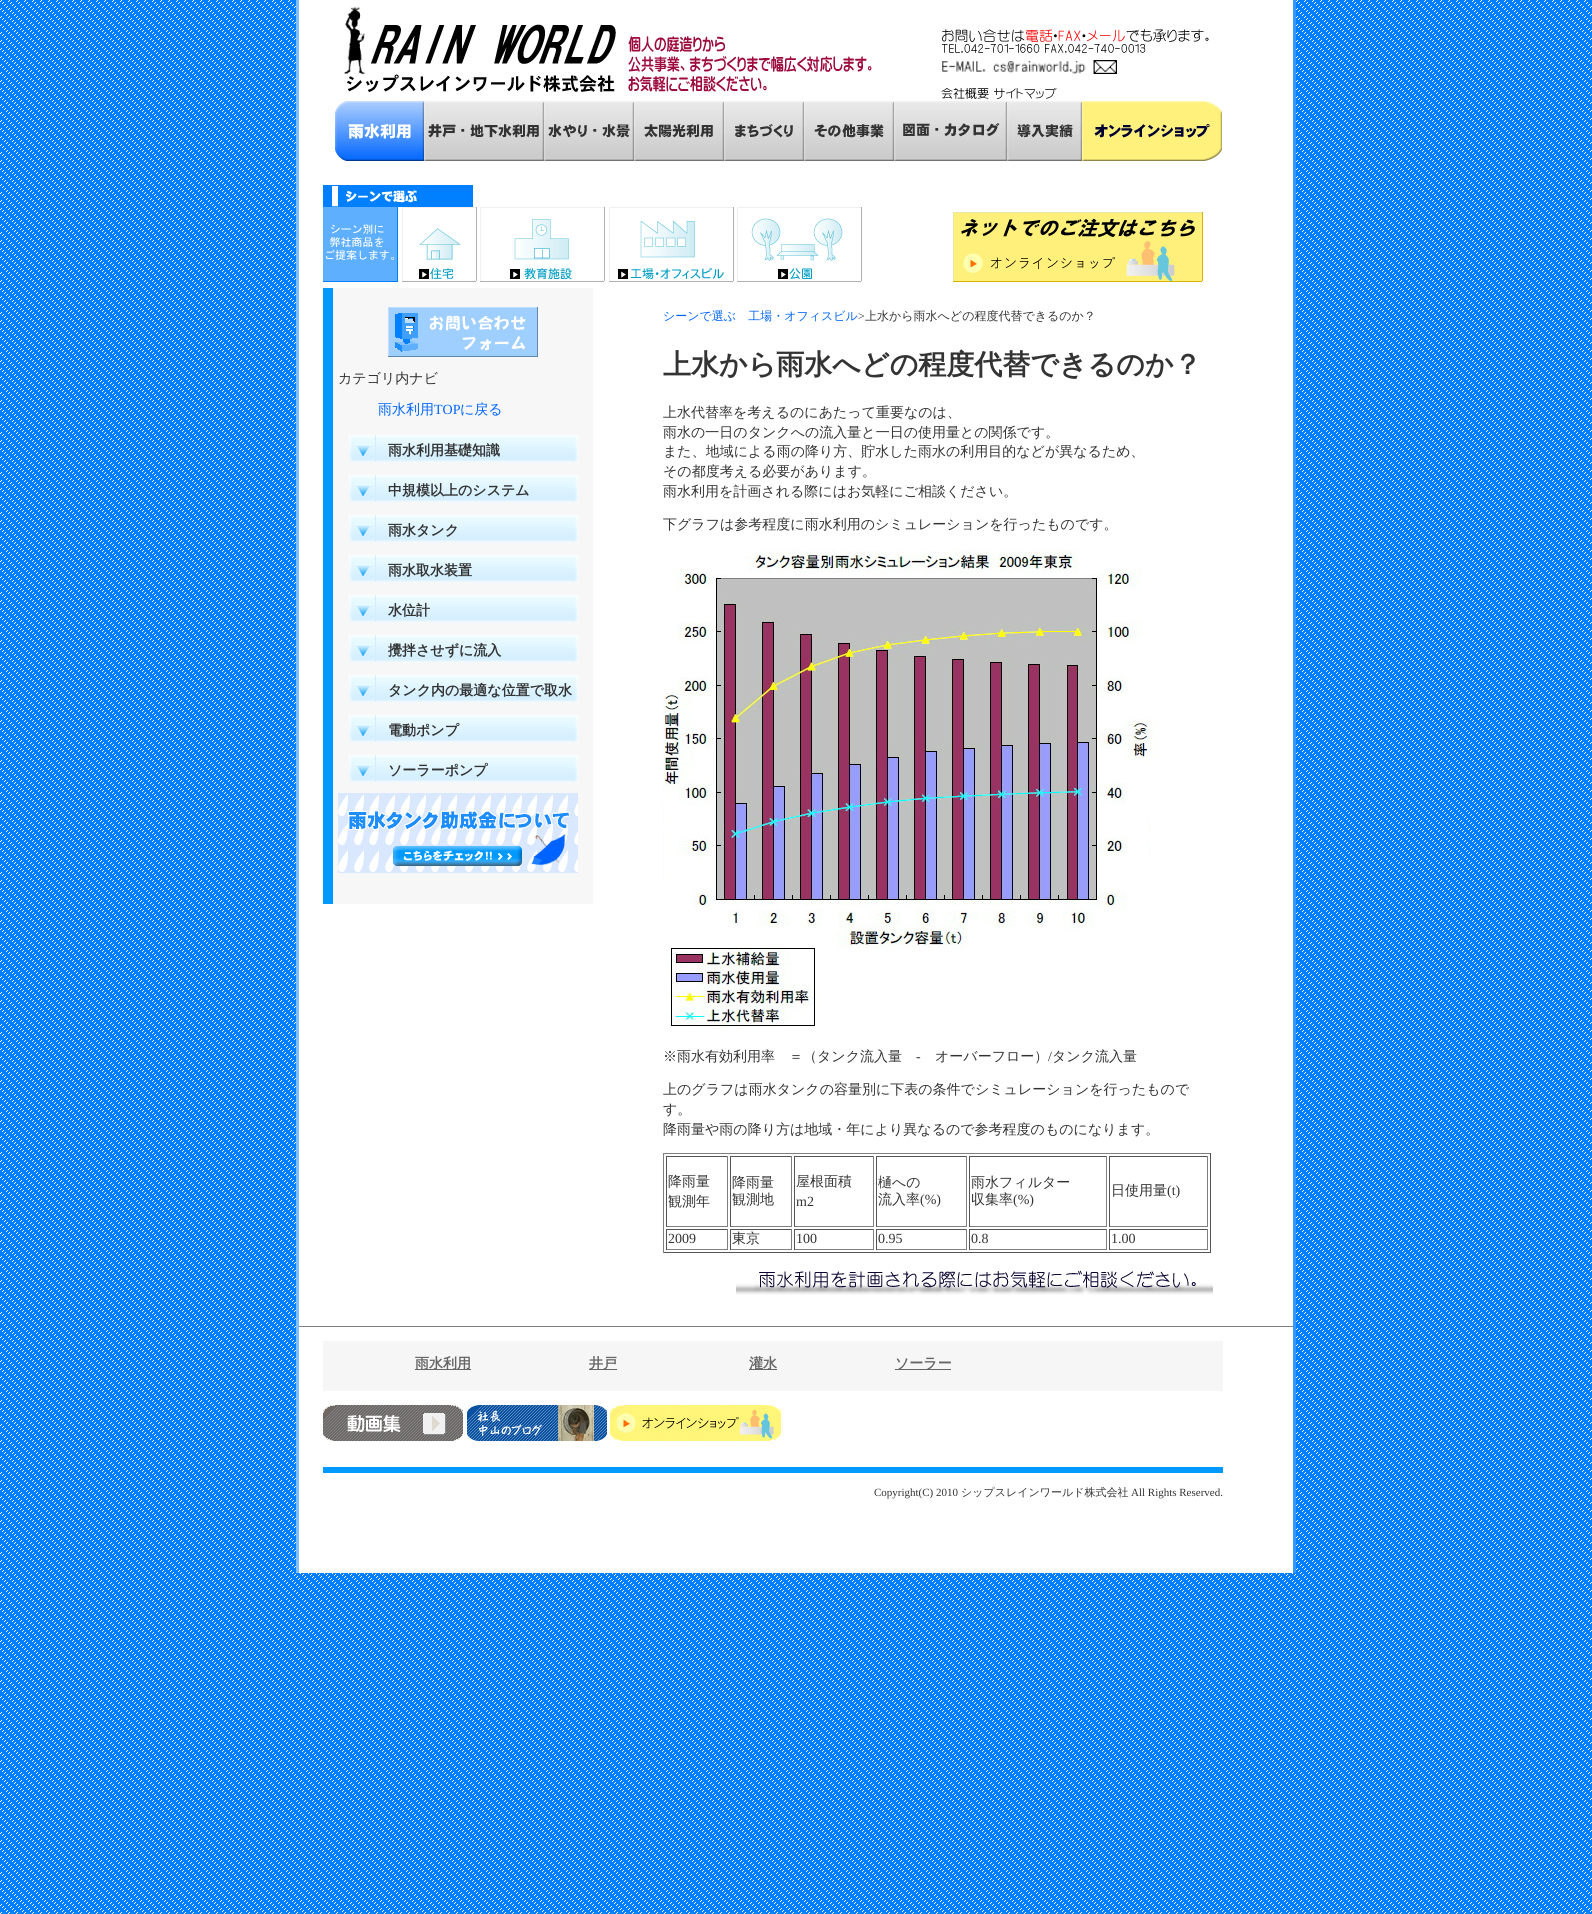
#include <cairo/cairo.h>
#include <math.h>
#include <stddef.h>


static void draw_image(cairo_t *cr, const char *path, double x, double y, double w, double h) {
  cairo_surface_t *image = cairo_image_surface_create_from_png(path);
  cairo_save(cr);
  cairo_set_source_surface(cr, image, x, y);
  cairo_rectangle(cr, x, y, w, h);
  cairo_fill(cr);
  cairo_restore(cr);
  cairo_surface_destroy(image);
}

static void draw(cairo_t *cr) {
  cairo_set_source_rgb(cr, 1, 1, 1);
  cairo_paint(cr);
  draw_image(cr, "images/1.png", 0, 0, 1592, 1914);
  cairo_set_source_rgb(cr, 1, 1, 1);
  cairo_rectangle(cr, 299, 0, 994, 1573);
  cairo_fill(cr);
  cairo_set_source_rgb(cr, 51 / 255.0, 153 / 255.0, 1);
  cairo_rectangle(cr, 1293, 0, 3, 1573);
  cairo_fill(cr);
  cairo_set_source_rgb(cr, 128 / 255.0, 191 / 255.0, 1);
  cairo_rectangle(cr, 296, 0, 3, 1573);
  cairo_fill(cr);
  draw_image(cr, "images/2.png", 344, 7, 272, 85);
  draw_image(cr, "images/3.png", 628, 36, 244, 56);
  draw_image(cr, "images/4.png", 942, 29, 267, 14);
  draw_image(cr, "images/5.png", 941, 44, 99, 9);
  draw_image(cr, "images/6.png", 1045, 44, 101, 9);
  draw_image(cr, "images/7.png", 942, 60, 175, 14);
  draw_image(cr, "images/8.png", 941, 88, 48, 11);
  draw_image(cr, "images/9.png", 994, 88, 63, 11);
  draw_image(cr, "images/10.png", 335, 101, 89, 60);
  draw_image(cr, "images/11.png", 424, 101, 120, 60);
  draw_image(cr, "images/12.png", 544, 101, 90, 60);
  draw_image(cr, "images/13.png", 634, 101, 90, 60);
  draw_image(cr, "images/14.png", 724, 101, 80, 60);
  draw_image(cr, "images/15.png", 804, 101, 90, 60);
  draw_image(cr, "images/16.png", 894, 101, 113, 60);
  draw_image(cr, "images/17.png", 1007, 101, 75, 60);
  draw_image(cr, "images/18.png", 1082, 101, 140, 60);
  draw_image(cr, "images/19.png", 323, 185, 150, 22);
  draw_image(cr, "images/20.png", 323, 207, 75, 75);
  draw_image(cr, "images/21.png", 402, 207, 75, 75);
  draw_image(cr, "images/22.png", 480, 207, 125, 75);
  draw_image(cr, "images/23.png", 609, 207, 125, 75);
  draw_image(cr, "images/24.png", 737, 207, 125, 75);
  draw_image(cr, "images/25.png", 953, 212, 250, 70);
  cairo_set_source_rgb(cr, 247 / 255.0, 247 / 255.0, 247 / 255.0);
  cairo_rectangle(cr, 333, 288, 260, 616);
  cairo_fill(cr);
  cairo_set_source_rgb(cr, 0, 153 / 255.0, 1);
  cairo_rectangle(cr, 323, 288, 10, 616);
  cairo_fill(cr);
  draw_image(cr, "images/26.png", 388, 307, 150, 50);
  draw_image(cr, "images/27.png", 349, 435, 229, 27);
  draw_image(cr, "images/27.png", 349, 475, 229, 27);
  draw_image(cr, "images/27.png", 349, 515, 229, 27);
  draw_image(cr, "images/27.png", 349, 555, 229, 27);
  draw_image(cr, "images/27.png", 349, 595, 229, 27);
  draw_image(cr, "images/27.png", 349, 635, 229, 27);
  draw_image(cr, "images/27.png", 349, 675, 229, 27);
  draw_image(cr, "images/27.png", 349, 715, 229, 27);
  draw_image(cr, "images/27.png", 349, 755, 229, 27);
  draw_image(cr, "images/28.png", 338, 793, 240, 80);
  draw_image(cr, "images/29.png", 663, 549, 496, 480);
  cairo_set_source_rgb(cr, 128 / 255.0, 128 / 255.0, 128 / 255.0);
  cairo_rectangle(cr, 663, 1153, 548, 1);
  cairo_fill(cr);
  cairo_set_source_rgb(cr, 85 / 255.0, 85 / 255.0, 85 / 255.0);
  cairo_rectangle(cr, 1210, 1153, 1, 100);
  cairo_fill(cr);
  cairo_rectangle(cr, 663, 1252, 548, 1);
  cairo_fill(cr);
  cairo_set_source_rgb(cr, 128 / 255.0, 128 / 255.0, 128 / 255.0);
  cairo_rectangle(cr, 663, 1153, 1, 100);
  cairo_fill(cr);
  cairo_set_source_rgb(cr, 85 / 255.0, 85 / 255.0, 85 / 255.0);
  cairo_rectangle(cr, 666, 1156, 62, 1);
  cairo_fill(cr);
  cairo_set_source_rgb(cr, 128 / 255.0, 128 / 255.0, 128 / 255.0);
  cairo_rectangle(cr, 727, 1156, 1, 71);
  cairo_fill(cr);
  cairo_rectangle(cr, 666, 1226, 62, 1);
  cairo_fill(cr);
  cairo_set_source_rgb(cr, 85 / 255.0, 85 / 255.0, 85 / 255.0);
  cairo_rectangle(cr, 666, 1156, 1, 71);
  cairo_fill(cr);
  cairo_rectangle(cr, 730, 1156, 62, 1);
  cairo_fill(cr);
  cairo_set_source_rgb(cr, 128 / 255.0, 128 / 255.0, 128 / 255.0);
  cairo_rectangle(cr, 791, 1156, 1, 71);
  cairo_fill(cr);
  cairo_rectangle(cr, 730, 1226, 62, 1);
  cairo_fill(cr);
  cairo_set_source_rgb(cr, 85 / 255.0, 85 / 255.0, 85 / 255.0);
  cairo_rectangle(cr, 730, 1156, 1, 71);
  cairo_fill(cr);
  cairo_rectangle(cr, 794, 1156, 80, 1);
  cairo_fill(cr);
  cairo_set_source_rgb(cr, 128 / 255.0, 128 / 255.0, 128 / 255.0);
  cairo_rectangle(cr, 873, 1156, 1, 71);
  cairo_fill(cr);
  cairo_rectangle(cr, 794, 1226, 80, 1);
  cairo_fill(cr);
  cairo_set_source_rgb(cr, 85 / 255.0, 85 / 255.0, 85 / 255.0);
  cairo_rectangle(cr, 794, 1156, 1, 71);
  cairo_fill(cr);
  cairo_rectangle(cr, 876, 1156, 91, 1);
  cairo_fill(cr);
  cairo_set_source_rgb(cr, 128 / 255.0, 128 / 255.0, 128 / 255.0);
  cairo_rectangle(cr, 966, 1156, 1, 71);
  cairo_fill(cr);
  cairo_rectangle(cr, 876, 1226, 91, 1);
  cairo_fill(cr);
  cairo_set_source_rgb(cr, 85 / 255.0, 85 / 255.0, 85 / 255.0);
  cairo_rectangle(cr, 876, 1156, 1, 71);
  cairo_fill(cr);
  cairo_rectangle(cr, 969, 1156, 138, 1);
  cairo_fill(cr);
  cairo_set_source_rgb(cr, 128 / 255.0, 128 / 255.0, 128 / 255.0);
  cairo_rectangle(cr, 1106, 1156, 1, 71);
  cairo_fill(cr);
  cairo_rectangle(cr, 969, 1226, 138, 1);
  cairo_fill(cr);
  cairo_set_source_rgb(cr, 85 / 255.0, 85 / 255.0, 85 / 255.0);
  cairo_rectangle(cr, 969, 1156, 1, 71);
  cairo_fill(cr);
  cairo_rectangle(cr, 1109, 1156, 99, 1);
  cairo_fill(cr);
  cairo_set_source_rgb(cr, 128 / 255.0, 128 / 255.0, 128 / 255.0);
  cairo_rectangle(cr, 1207, 1156, 1, 71);
  cairo_fill(cr);
  cairo_rectangle(cr, 1109, 1226, 99, 1);
  cairo_fill(cr);
  cairo_set_source_rgb(cr, 85 / 255.0, 85 / 255.0, 85 / 255.0);
  cairo_rectangle(cr, 1109, 1156, 1, 71);
  cairo_fill(cr);
  cairo_rectangle(cr, 666, 1229, 62, 1);
  cairo_fill(cr);
  cairo_set_source_rgb(cr, 128 / 255.0, 128 / 255.0, 128 / 255.0);
  cairo_rectangle(cr, 727, 1229, 1, 21);
  cairo_fill(cr);
  cairo_rectangle(cr, 666, 1249, 62, 1);
  cairo_fill(cr);
  cairo_set_source_rgb(cr, 85 / 255.0, 85 / 255.0, 85 / 255.0);
  cairo_rectangle(cr, 666, 1229, 1, 21);
  cairo_fill(cr);
  cairo_rectangle(cr, 730, 1229, 62, 1);
  cairo_fill(cr);
  cairo_set_source_rgb(cr, 128 / 255.0, 128 / 255.0, 128 / 255.0);
  cairo_rectangle(cr, 791, 1229, 1, 21);
  cairo_fill(cr);
  cairo_rectangle(cr, 730, 1249, 62, 1);
  cairo_fill(cr);
  cairo_set_source_rgb(cr, 85 / 255.0, 85 / 255.0, 85 / 255.0);
  cairo_rectangle(cr, 730, 1229, 1, 21);
  cairo_fill(cr);
  cairo_rectangle(cr, 794, 1229, 80, 1);
  cairo_fill(cr);
  cairo_set_source_rgb(cr, 128 / 255.0, 128 / 255.0, 128 / 255.0);
  cairo_rectangle(cr, 873, 1229, 1, 21);
  cairo_fill(cr);
  cairo_rectangle(cr, 794, 1249, 80, 1);
  cairo_fill(cr);
  cairo_set_source_rgb(cr, 85 / 255.0, 85 / 255.0, 85 / 255.0);
  cairo_rectangle(cr, 794, 1229, 1, 21);
  cairo_fill(cr);
  cairo_rectangle(cr, 876, 1229, 91, 1);
  cairo_fill(cr);
  cairo_set_source_rgb(cr, 128 / 255.0, 128 / 255.0, 128 / 255.0);
  cairo_rectangle(cr, 966, 1229, 1, 21);
  cairo_fill(cr);
  cairo_rectangle(cr, 876, 1249, 91, 1);
  cairo_fill(cr);
  cairo_set_source_rgb(cr, 85 / 255.0, 85 / 255.0, 85 / 255.0);
  cairo_rectangle(cr, 876, 1229, 1, 21);
  cairo_fill(cr);
  cairo_rectangle(cr, 969, 1229, 138, 1);
  cairo_fill(cr);
  cairo_set_source_rgb(cr, 128 / 255.0, 128 / 255.0, 128 / 255.0);
  cairo_rectangle(cr, 1106, 1229, 1, 21);
  cairo_fill(cr);
  cairo_rectangle(cr, 969, 1249, 138, 1);
  cairo_fill(cr);
  cairo_set_source_rgb(cr, 85 / 255.0, 85 / 255.0, 85 / 255.0);
  cairo_rectangle(cr, 969, 1229, 1, 21);
  cairo_fill(cr);
  cairo_rectangle(cr, 1109, 1229, 99, 1);
  cairo_fill(cr);
  cairo_set_source_rgb(cr, 128 / 255.0, 128 / 255.0, 128 / 255.0);
  cairo_rectangle(cr, 1207, 1229, 1, 21);
  cairo_fill(cr);
  cairo_rectangle(cr, 1109, 1249, 99, 1);
  cairo_fill(cr);
  cairo_set_source_rgb(cr, 85 / 255.0, 85 / 255.0, 85 / 255.0);
  cairo_rectangle(cr, 1109, 1229, 1, 21);
  cairo_fill(cr);
  draw_image(cr, "images/30.png", 736, 1270, 477, 25);
  cairo_set_source_rgb(cr, 128 / 255.0, 128 / 255.0, 128 / 255.0);
  cairo_rectangle(cr, 299, 1326, 994, 1);
  cairo_fill(cr);
  cairo_set_source_rgb(cr, 246 / 255.0, 246 / 255.0, 246 / 255.0);
  cairo_rectangle(cr, 323, 1341, 900, 50);
  cairo_fill(cr);
  cairo_set_source_rgb(cr, 102 / 255.0, 102 / 255.0, 102 / 255.0);
  cairo_rectangle(cr, 415, 1369, 56, 1);
  cairo_fill(cr);
  cairo_rectangle(cr, 589, 1369, 28, 1);
  cairo_fill(cr);
  cairo_rectangle(cr, 749, 1369, 28, 1);
  cairo_fill(cr);
  cairo_rectangle(cr, 895, 1369, 56, 1);
  cairo_fill(cr);
  draw_image(cr, "images/31.png", 323, 1405, 140, 36);
  draw_image(cr, "images/32.png", 467, 1405, 140, 36);
  draw_image(cr, "images/33.png", 610, 1405, 171, 36);
  cairo_set_source_rgb(cr, 0, 153 / 255.0, 1);
  cairo_rectangle(cr, 323, 1467, 900, 6);
  cairo_fill(cr);
  cairo_select_font_face(cr, "WenQuanYi Zen Hei Medium", CAIRO_FONT_SLANT_NORMAL, CAIRO_FONT_WEIGHT_NORMAL);
  cairo_set_font_size(cr, 14);
  cairo_set_source_rgb(cr, 51 / 255.0, 51 / 255.0, 51 / 255.0);
  cairo_move_to(cr, 338, 383);
  cairo_show_text(cr, "カテゴリ内ナビ");
  cairo_set_source_rgb(cr, 0, 102 / 255.0, 1);
  cairo_move_to(cr, 378, 414);
  cairo_show_text(cr, "雨水利用");
  cairo_select_font_face(cr, "Liberation Serif", CAIRO_FONT_SLANT_NORMAL, CAIRO_FONT_WEIGHT_NORMAL);
  cairo_move_to(cr, 434, 414);
  cairo_show_text(cr, "TOP");
  cairo_select_font_face(cr, "WenQuanYi Zen Hei Medium", CAIRO_FONT_SLANT_NORMAL, CAIRO_FONT_WEIGHT_NORMAL);
  cairo_move_to(cr, 460, 414);
  cairo_show_text(cr, "に戻る");
  cairo_select_font_face(cr, "WenQuanYi Zen Hei", CAIRO_FONT_SLANT_NORMAL, CAIRO_FONT_WEIGHT_BOLD);
  cairo_set_source_rgb(cr, 51 / 255.0, 51 / 255.0, 51 / 255.0);
  cairo_move_to(cr, 388, 455);
  cairo_show_text(cr, "雨水利用基礎知識");
  cairo_move_to(cr, 388, 495);
  cairo_show_text(cr, "中規模以上のシステム");
  cairo_move_to(cr, 388, 535);
  cairo_show_text(cr, "雨水タンク");
  cairo_move_to(cr, 388, 575);
  cairo_show_text(cr, "雨水取水装置");
  cairo_move_to(cr, 388, 615);
  cairo_show_text(cr, "水位計");
  cairo_move_to(cr, 388, 655);
  cairo_show_text(cr, "攪拌させずに流入");
  cairo_move_to(cr, 388, 695);
  cairo_show_text(cr, "タンク内の最適な位置で取水");
  cairo_move_to(cr, 388, 735);
  cairo_show_text(cr, "電動ポンプ");
  cairo_move_to(cr, 388, 775);
  cairo_show_text(cr, "ソーラーポンプ");
  cairo_select_font_face(cr, "WenQuanYi Zen Hei Medium", CAIRO_FONT_SLANT_NORMAL, CAIRO_FONT_WEIGHT_NORMAL);
  cairo_set_font_size(cr, 12);
  cairo_set_source_rgb(cr, 0, 102 / 255.0, 1);
  cairo_move_to(cr, 663, 320);
  cairo_show_text(cr, "シーンで選ぶ　工場・オフィスビル");
  cairo_select_font_face(cr, "Liberation Serif", CAIRO_FONT_SLANT_NORMAL, CAIRO_FONT_WEIGHT_NORMAL);
  cairo_set_source_rgb(cr, 51 / 255.0, 51 / 255.0, 51 / 255.0);
  cairo_move_to(cr, 858, 320);
  cairo_show_text(cr, ">");
  cairo_select_font_face(cr, "WenQuanYi Zen Hei Medium", CAIRO_FONT_SLANT_NORMAL, CAIRO_FONT_WEIGHT_NORMAL);
  cairo_move_to(cr, 865, 320);
  cairo_show_text(cr, "上水から雨水へどの程度代替できるのか？");
  cairo_select_font_face(cr, "WenQuanYi Zen Hei", CAIRO_FONT_SLANT_NORMAL, CAIRO_FONT_WEIGHT_BOLD);
  cairo_set_font_size(cr, 28);
  cairo_move_to(cr, 663, 374);
  cairo_show_text(cr, "上水から雨水へどの程度代替できるのか？");
  cairo_select_font_face(cr, "WenQuanYi Zen Hei Medium", CAIRO_FONT_SLANT_NORMAL, CAIRO_FONT_WEIGHT_NORMAL);
  cairo_set_font_size(cr, 14);
  cairo_move_to(cr, 663, 417);
  cairo_show_text(cr, "上水代替率を考えるのにあたって重要なのは、");
  cairo_move_to(cr, 663, 437);
  cairo_show_text(cr, "雨水の一日のタンクへの流入量と一日の使用量との関係です。");
  cairo_move_to(cr, 663, 456);
  cairo_show_text(cr, "また、地域による雨の降り方、貯水した雨水の利用目的などが異なるため、");
  cairo_move_to(cr, 663, 476);
  cairo_show_text(cr, "その都度考える必要があります。");
  cairo_move_to(cr, 663, 496);
  cairo_show_text(cr, "雨水利用を計画される際にはお気軽にご相談ください。");
  cairo_move_to(cr, 663, 529);
  cairo_show_text(cr, "下グラフは参考程度に雨水利用のシミュレーションを行ったものです。");
  cairo_move_to(cr, 663, 1061);
  cairo_show_text(cr, "※雨水有効利用率　＝（タンク流入量");
  cairo_select_font_face(cr, "Liberation Serif", CAIRO_FONT_SLANT_NORMAL, CAIRO_FONT_WEIGHT_NORMAL);
  cairo_move_to(cr, 916, 1061);
  cairo_show_text(cr, "-");
  cairo_select_font_face(cr, "WenQuanYi Zen Hei Medium", CAIRO_FONT_SLANT_NORMAL, CAIRO_FONT_WEIGHT_NORMAL);
  cairo_move_to(cr, 935, 1061);
  cairo_show_text(cr, "オーバーフロー）");
  cairo_select_font_face(cr, "Liberation Serif", CAIRO_FONT_SLANT_NORMAL, CAIRO_FONT_WEIGHT_NORMAL);
  cairo_move_to(cr, 1048, 1061);
  cairo_show_text(cr, "/");
  cairo_select_font_face(cr, "WenQuanYi Zen Hei Medium", CAIRO_FONT_SLANT_NORMAL, CAIRO_FONT_WEIGHT_NORMAL);
  cairo_move_to(cr, 1052, 1061);
  cairo_show_text(cr, "タンク流入量");
  cairo_move_to(cr, 663, 1094);
  cairo_show_text(cr, "上のグラフは雨水タンクの容量別に下表の条件でシミュレーションを行ったもので");
  cairo_move_to(cr, 663, 1114);
  cairo_show_text(cr, "す。");
  cairo_move_to(cr, 663, 1134);
  cairo_show_text(cr, "降雨量や雨の降り方は地域・年により異なるので参考程度のものになります。");
  cairo_move_to(cr, 668, 1186);
  cairo_show_text(cr, "降雨量");
  cairo_move_to(cr, 668, 1206);
  cairo_show_text(cr, "観測年");
  cairo_move_to(cr, 732, 1187);
  cairo_show_text(cr, "降雨量");
  cairo_move_to(cr, 732, 1204);
  cairo_show_text(cr, "観測地");
  cairo_move_to(cr, 796, 1186);
  cairo_show_text(cr, "屋根面積");
  cairo_select_font_face(cr, "Liberation Serif", CAIRO_FONT_SLANT_NORMAL, CAIRO_FONT_WEIGHT_NORMAL);
  cairo_move_to(cr, 796, 1206);
  cairo_show_text(cr, "m2");
  cairo_select_font_face(cr, "WenQuanYi Zen Hei Medium", CAIRO_FONT_SLANT_NORMAL, CAIRO_FONT_WEIGHT_NORMAL);
  cairo_move_to(cr, 878, 1187);
  cairo_show_text(cr, "樋への");
  cairo_move_to(cr, 878, 1204);
  cairo_show_text(cr, "流入率");
  cairo_select_font_face(cr, "Liberation Serif", CAIRO_FONT_SLANT_NORMAL, CAIRO_FONT_WEIGHT_NORMAL);
  cairo_move_to(cr, 920, 1204);
  cairo_show_text(cr, "(%)");
  cairo_select_font_face(cr, "WenQuanYi Zen Hei Medium", CAIRO_FONT_SLANT_NORMAL, CAIRO_FONT_WEIGHT_NORMAL);
  cairo_move_to(cr, 971, 1187);
  cairo_show_text(cr, "雨水フィルター");
  cairo_move_to(cr, 971, 1204);
  cairo_show_text(cr, "収集率");
  cairo_select_font_face(cr, "Liberation Serif", CAIRO_FONT_SLANT_NORMAL, CAIRO_FONT_WEIGHT_NORMAL);
  cairo_move_to(cr, 1013, 1204);
  cairo_show_text(cr, "(%)");
  cairo_select_font_face(cr, "WenQuanYi Zen Hei Medium", CAIRO_FONT_SLANT_NORMAL, CAIRO_FONT_WEIGHT_NORMAL);
  cairo_move_to(cr, 1111, 1195);
  cairo_show_text(cr, "日使用量");
  cairo_select_font_face(cr, "Liberation Serif", CAIRO_FONT_SLANT_NORMAL, CAIRO_FONT_WEIGHT_NORMAL);
  cairo_move_to(cr, 1167, 1195);
  cairo_show_text(cr, "(t)");
  cairo_move_to(cr, 668, 1243);
  cairo_show_text(cr, "2009");
  cairo_select_font_face(cr, "WenQuanYi Zen Hei Medium", CAIRO_FONT_SLANT_NORMAL, CAIRO_FONT_WEIGHT_NORMAL);
  cairo_move_to(cr, 732, 1243);
  cairo_show_text(cr, "東京");
  cairo_select_font_face(cr, "Liberation Serif", CAIRO_FONT_SLANT_NORMAL, CAIRO_FONT_WEIGHT_NORMAL);
  cairo_move_to(cr, 796, 1243);
  cairo_show_text(cr, "100");
  cairo_move_to(cr, 878, 1243);
  cairo_show_text(cr, "0.95");
  cairo_move_to(cr, 971, 1243);
  cairo_show_text(cr, "0.8");
  cairo_move_to(cr, 1111, 1243);
  cairo_show_text(cr, "1.00");
  cairo_select_font_face(cr, "WenQuanYi Zen Hei", CAIRO_FONT_SLANT_NORMAL, CAIRO_FONT_WEIGHT_BOLD);
  cairo_set_source_rgb(cr, 102 / 255.0, 102 / 255.0, 102 / 255.0);
  cairo_move_to(cr, 415, 1368);
  cairo_show_text(cr, "雨水利用");
  cairo_move_to(cr, 589, 1368);
  cairo_show_text(cr, "井戸");
  cairo_move_to(cr, 749, 1368);
  cairo_show_text(cr, "灌水");
  cairo_move_to(cr, 895, 1368);
  cairo_show_text(cr, "ソーラー");
  cairo_select_font_face(cr, "Liberation Serif", CAIRO_FONT_SLANT_NORMAL, CAIRO_FONT_WEIGHT_NORMAL);
  cairo_set_font_size(cr, 11);
  cairo_set_source_rgb(cr, 51 / 255.0, 51 / 255.0, 51 / 255.0);
  cairo_move_to(cr, 874, 1496);
  cairo_show_text(cr, "Copyright(C) 2010");
  cairo_select_font_face(cr, "WenQuanYi Zen Hei Medium", CAIRO_FONT_SLANT_NORMAL, CAIRO_FONT_WEIGHT_NORMAL);
  cairo_move_to(cr, 961, 1496);
  cairo_show_text(cr, "シップスレインワールド株式会社");
  cairo_select_font_face(cr, "Liberation Serif", CAIRO_FONT_SLANT_NORMAL, CAIRO_FONT_WEIGHT_NORMAL);
  cairo_move_to(cr, 1131, 1496);
  cairo_show_text(cr, "All Rights Reserved.");
}

int main(void) {
  cairo_surface_t *surface = cairo_image_surface_create(CAIRO_FORMAT_RGB24, 1592, 1914);
  cairo_t *cr = cairo_create(surface);
  cairo_font_options_t *options = cairo_font_options_create();
  cairo_font_options_set_hint_metrics(options, CAIRO_HINT_METRICS_OFF);
  cairo_font_options_set_hint_style(options, CAIRO_HINT_STYLE_NONE);
  cairo_set_font_options(cr, options);
  cairo_set_miter_limit(cr, 4);
  draw(cr);
  cairo_surface_write_to_png(surface, "out.png");
  cairo_font_options_destroy(options);
  cairo_destroy(cr);
  cairo_surface_destroy(surface);
  return 0;
}
